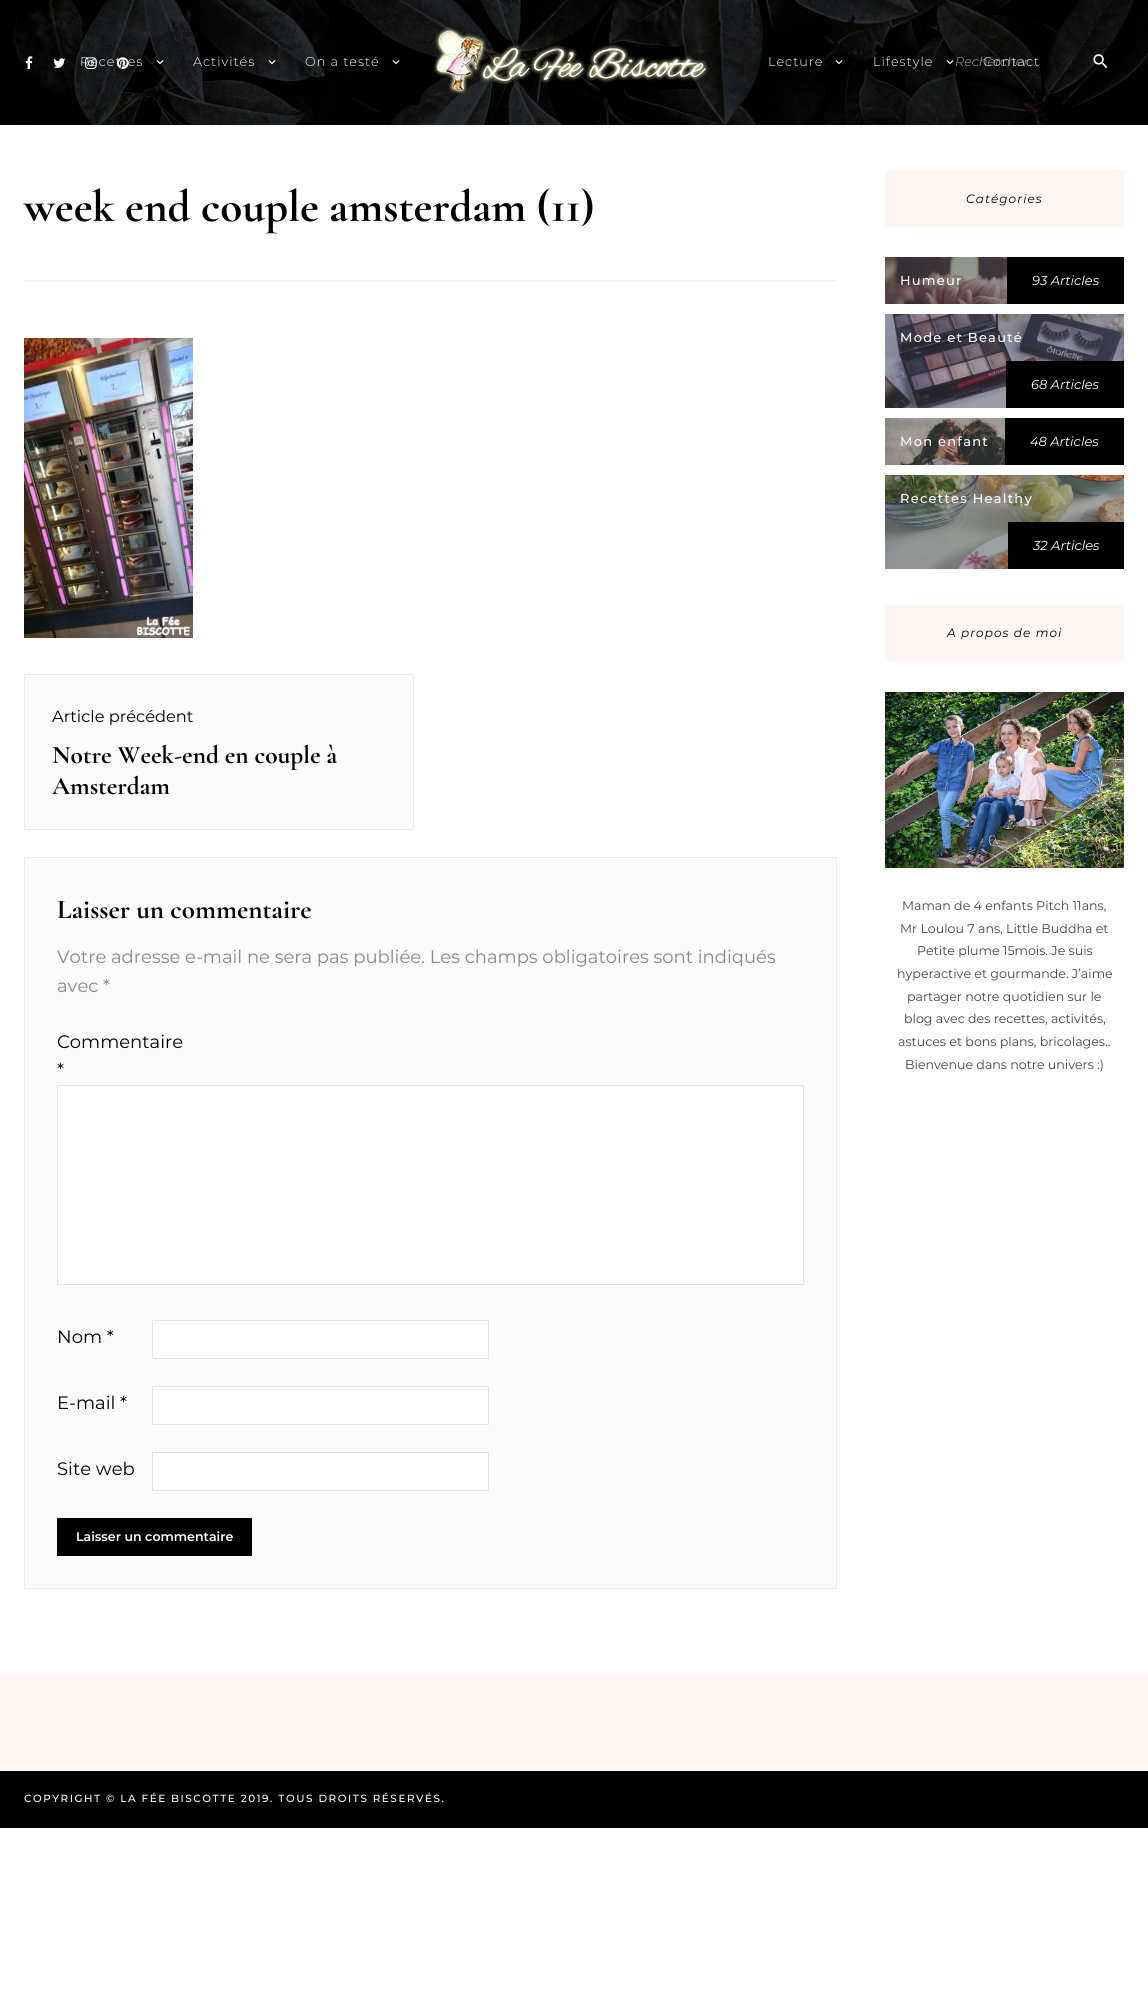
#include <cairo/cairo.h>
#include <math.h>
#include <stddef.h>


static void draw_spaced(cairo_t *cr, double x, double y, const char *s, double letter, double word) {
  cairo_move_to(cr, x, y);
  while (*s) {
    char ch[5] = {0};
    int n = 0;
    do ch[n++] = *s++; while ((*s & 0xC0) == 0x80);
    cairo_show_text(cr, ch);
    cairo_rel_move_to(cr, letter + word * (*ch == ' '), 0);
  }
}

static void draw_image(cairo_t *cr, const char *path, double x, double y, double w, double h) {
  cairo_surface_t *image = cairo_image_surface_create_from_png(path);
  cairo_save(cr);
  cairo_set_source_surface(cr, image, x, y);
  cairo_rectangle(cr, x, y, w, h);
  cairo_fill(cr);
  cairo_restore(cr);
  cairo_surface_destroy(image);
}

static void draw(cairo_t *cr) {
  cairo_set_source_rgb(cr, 1, 1, 1);
  cairo_paint(cr);
  cairo_set_source_rgb(cr, 0, 0, 0);
  cairo_rectangle(cr, 0, 0, 12, 125);
  cairo_fill(cr);
  draw_image(cr, "images/1.png", 12, 0, 1136, 125);
  draw_image(cr, "images/2.png", 25, 56, 8, 13);
  draw_image(cr, "images/3.png", 53, 58, 13, 10);
  draw_image(cr, "images/4.png", 85, 57, 12, 12);
  draw_image(cr, "images/5.png", 117, 57, 12, 12);
  draw_image(cr, "images/6.png", 156, 60, 8, 5);
  draw_image(cr, "images/7.png", 268, 60, 8, 5);
  draw_image(cr, "images/8.png", 392, 60, 8, 5);
  draw_image(cr, "images/9.png", 433, 27, 276, 67);
  draw_image(cr, "images/10.png", 835, 60, 8, 5);
  draw_image(cr, "images/11.png", 946, 60, 8, 5);
  draw_image(cr, "images/12.png", 1093, 54, 15, 15);
  cairo_set_source_rgb(cr, 243 / 255.0, 242 / 255.0, 241 / 255.0);
  cairo_rectangle(cr, 24, 280, 813, 2);
  cairo_fill(cr);
  draw_image(cr, "images/13.png", 24, 338, 169, 300);
  cairo_set_source_rgb(cr, 251 / 255.0, 251 / 255.0, 251 / 255.0);
  cairo_rectangle(cr, 24.5, 674.5, 389, 155);
  cairo_fill_preserve(cr);
  cairo_set_source_rgb(cr, 235 / 255.0, 235 / 255.0, 235 / 255.0);
  cairo_set_line_width(cr, 1);
  cairo_stroke(cr);
  cairo_set_source_rgb(cr, 251 / 255.0, 251 / 255.0, 251 / 255.0);
  cairo_rectangle(cr, 24.5, 857.5, 812, 731);
  cairo_fill_preserve(cr);
  cairo_set_source_rgb(cr, 235 / 255.0, 235 / 255.0, 235 / 255.0);
  cairo_stroke(cr);
  cairo_set_source_rgb(cr, 1, 1, 1);
  cairo_rectangle(cr, 57.5, 1085.5, 746, 199);
  cairo_fill_preserve(cr);
  cairo_set_source_rgb(cr, 227 / 255.0, 227 / 255.0, 227 / 255.0);
  cairo_stroke(cr);
  cairo_set_source_rgb(cr, 1, 1, 1);
  cairo_rectangle(cr, 152.5, 1320.5, 336, 38);
  cairo_fill_preserve(cr);
  cairo_set_source_rgb(cr, 227 / 255.0, 227 / 255.0, 227 / 255.0);
  cairo_stroke(cr);
  cairo_set_source_rgb(cr, 1, 1, 1);
  cairo_rectangle(cr, 152.5, 1386.5, 336, 38);
  cairo_fill_preserve(cr);
  cairo_set_source_rgb(cr, 227 / 255.0, 227 / 255.0, 227 / 255.0);
  cairo_stroke(cr);
  cairo_set_source_rgb(cr, 1, 1, 1);
  cairo_rectangle(cr, 152.5, 1452.5, 336, 38);
  cairo_fill_preserve(cr);
  cairo_set_source_rgb(cr, 227 / 255.0, 227 / 255.0, 227 / 255.0);
  cairo_stroke(cr);
  cairo_set_source_rgb(cr, 0, 0, 0);
  cairo_rectangle(cr, 57, 1518, 195, 38);
  cairo_fill(cr);
  cairo_set_source_rgb(cr, 1, 246 / 255.0, 241 / 255.0);
  cairo_rectangle(cr, 885, 170, 239, 57);
  cairo_fill(cr);
  cairo_set_source_rgb(cr, 69 / 255.0, 69 / 255.0, 69 / 255.0);
  cairo_rectangle(cr, 885, 257, 122, 47);
  cairo_fill(cr);
  draw_image(cr, "images/14.png", 885, 257, 122, 47);
  cairo_set_source_rgb(cr, 0, 0, 0);
  cairo_rectangle(cr, 1007, 257, 117, 47);
  cairo_fill(cr);
  cairo_set_source_rgb(cr, 69 / 255.0, 69 / 255.0, 69 / 255.0);
  cairo_rectangle(cr, 885, 314, 239, 94);
  cairo_fill(cr);
  draw_image(cr, "images/15.png", 885, 314, 239, 94);
  cairo_set_source_rgb(cr, 0, 0, 0);
  cairo_rectangle(cr, 1006, 361, 118, 47);
  cairo_fill(cr);
  cairo_set_source_rgb(cr, 69 / 255.0, 69 / 255.0, 69 / 255.0);
  cairo_rectangle(cr, 885, 418, 120, 47);
  cairo_fill(cr);
  draw_image(cr, "images/16.png", 885, 418, 120, 47);
  cairo_set_source_rgb(cr, 0, 0, 0);
  cairo_rectangle(cr, 1005, 418, 119, 47);
  cairo_fill(cr);
  cairo_set_source_rgb(cr, 69 / 255.0, 69 / 255.0, 69 / 255.0);
  cairo_rectangle(cr, 885, 475, 239, 94);
  cairo_fill(cr);
  draw_image(cr, "images/17.png", 885, 475, 239, 94);
  cairo_set_source_rgb(cr, 0, 0, 0);
  cairo_rectangle(cr, 1008, 522, 116, 47);
  cairo_fill(cr);
  cairo_set_source_rgb(cr, 1, 246 / 255.0, 241 / 255.0);
  cairo_rectangle(cr, 885, 605, 239, 56);
  cairo_fill(cr);
  draw_image(cr, "images/18.png", 885, 692, 239, 176);
  cairo_rectangle(cr, 0, 1675, 1148, 96);
  cairo_fill(cr);
  cairo_set_source_rgb(cr, 0, 0, 0);
  cairo_rectangle(cr, 0, 1771, 1148, 57);
  cairo_fill(cr);
  cairo_select_font_face(cr, "Montserrat Light", CAIRO_FONT_SLANT_NORMAL, CAIRO_FONT_WEIGHT_NORMAL);
  cairo_set_font_size(cr, 12.75);
  cairo_set_source_rgb(cr, 1, 1, 1);
  draw_spaced(cr, 80, 66, "Recettes", 1, 0);
  draw_spaced(cr, 193, 66, "Activités", 1, 0);
  draw_spaced(cr, 305, 66, "On a testé", 1, 0);
  draw_spaced(cr, 768, 66, "Lecture", 1, 0);
  draw_spaced(cr, 873, 66, "Lifestyle", 1, 0);
  draw_spaced(cr, 983, 66, "Contact", 1, 0);
  cairo_select_font_face(cr, "Montserrat Light", CAIRO_FONT_SLANT_ITALIC, CAIRO_FONT_WEIGHT_NORMAL);
  cairo_set_source_rgb(cr, 169 / 255.0, 169 / 255.0, 169 / 255.0);
  cairo_move_to(cr, 955, 66);
  cairo_show_text(cr, "Rechercher...");
  cairo_select_font_face(cr, "Cormorant Garamond", CAIRO_FONT_SLANT_NORMAL, CAIRO_FONT_WEIGHT_BOLD);
  cairo_set_font_size(cr, 45);
  cairo_set_source_rgb(cr, 0, 0, 0);
  cairo_move_to(cr, 24, 221);
  cairo_show_text(cr, "week end couple amsterdam (11)");
  cairo_select_font_face(cr, "Montserrat", CAIRO_FONT_SLANT_NORMAL, CAIRO_FONT_WEIGHT_NORMAL);
  cairo_set_font_size(cr, 16.25);
  cairo_move_to(cr, 52, 722);
  cairo_show_text(cr, "Article précédent");
  cairo_select_font_face(cr, "Cormorant Garamond", CAIRO_FONT_SLANT_NORMAL, CAIRO_FONT_WEIGHT_BOLD);
  cairo_set_font_size(cr, 25.25);
  cairo_move_to(cr, 52, 763);
  cairo_show_text(cr, "Notre Week-end en couple à");
  cairo_move_to(cr, 52, 794);
  cairo_show_text(cr, "Amsterdam");
  cairo_set_font_size(cr, 27);
  cairo_move_to(cr, 57, 918);
  cairo_show_text(cr, "Laisser un commentaire");
  cairo_select_font_face(cr, "Montserrat", CAIRO_FONT_SLANT_NORMAL, CAIRO_FONT_WEIGHT_NORMAL);
  cairo_set_font_size(cr, 18);
  cairo_set_source_rgb(cr, 136 / 255.0, 136 / 255.0, 136 / 255.0);
  cairo_move_to(cr, 57, 963);
  cairo_show_text(cr, "Votre adresse e-mail ne sera pas publiée. Les champs obligatoires sont indiqués");
  cairo_move_to(cr, 57, 992);
  cairo_show_text(cr, "avec *");
  cairo_set_source_rgb(cr, 0, 0, 0);
  cairo_move_to(cr, 57, 1048);
  cairo_show_text(cr, "Commentaire");
  cairo_move_to(cr, 57, 1076);
  cairo_show_text(cr, "*");
  cairo_move_to(cr, 57, 1343);
  cairo_show_text(cr, "Nom *");
  cairo_move_to(cr, 57, 1409);
  cairo_show_text(cr, "E-mail *");
  cairo_move_to(cr, 57, 1475);
  cairo_show_text(cr, "Site web");
  cairo_select_font_face(cr, "Montserrat SemiBold", CAIRO_FONT_SLANT_NORMAL, CAIRO_FONT_WEIGHT_NORMAL);
  cairo_set_font_size(cr, 12.6);
  cairo_set_source_rgb(cr, 1, 1, 1);
  cairo_move_to(cr, 76, 1541);
  cairo_show_text(cr, "Laisser un commentaire");
  cairo_select_font_face(cr, "Montserrat", CAIRO_FONT_SLANT_ITALIC, CAIRO_FONT_WEIGHT_NORMAL);
  cairo_set_font_size(cr, 12);
  cairo_set_source_rgb(cr, 0, 0, 0);
  draw_spaced(cr, 966, 203, "Catégories", 1.1, 0);
  cairo_select_font_face(cr, "Montserrat Medium", CAIRO_FONT_SLANT_NORMAL, CAIRO_FONT_WEIGHT_NORMAL);
  cairo_set_font_size(cr, 13);
  cairo_set_source_rgb(cr, 1, 1, 1);
  draw_spaced(cr, 900, 285, "Humeur", 1.25, 0);
  cairo_select_font_face(cr, "Montserrat", CAIRO_FONT_SLANT_ITALIC, CAIRO_FONT_WEIGHT_NORMAL);
  cairo_move_to(cr, 1032, 285);
  cairo_show_text(cr, "93 Articles");
  cairo_select_font_face(cr, "Montserrat Medium", CAIRO_FONT_SLANT_NORMAL, CAIRO_FONT_WEIGHT_NORMAL);
  draw_spaced(cr, 900, 342, "Mode et Beauté", 1.25, 0);
  cairo_select_font_face(cr, "Montserrat", CAIRO_FONT_SLANT_ITALIC, CAIRO_FONT_WEIGHT_NORMAL);
  cairo_move_to(cr, 1031, 389);
  cairo_show_text(cr, "68 Articles");
  cairo_select_font_face(cr, "Montserrat Medium", CAIRO_FONT_SLANT_NORMAL, CAIRO_FONT_WEIGHT_NORMAL);
  draw_spaced(cr, 900, 446, "Mon enfant", 1.25, 0);
  cairo_select_font_face(cr, "Montserrat", CAIRO_FONT_SLANT_ITALIC, CAIRO_FONT_WEIGHT_NORMAL);
  cairo_move_to(cr, 1030, 446);
  cairo_show_text(cr, "48 Articles");
  cairo_select_font_face(cr, "Montserrat Medium", CAIRO_FONT_SLANT_NORMAL, CAIRO_FONT_WEIGHT_NORMAL);
  draw_spaced(cr, 900, 503, "Recettes Healthy", 1.25, 0);
  cairo_select_font_face(cr, "Montserrat", CAIRO_FONT_SLANT_ITALIC, CAIRO_FONT_WEIGHT_NORMAL);
  cairo_move_to(cr, 1033, 550);
  cairo_show_text(cr, "32 Articles");
  cairo_set_font_size(cr, 12);
  cairo_set_source_rgb(cr, 0, 0, 0);
  draw_spaced(cr, 947, 637, "A propos de moi", 1.1, 0);
  cairo_select_font_face(cr, "Montserrat", CAIRO_FONT_SLANT_NORMAL, CAIRO_FONT_WEIGHT_NORMAL);
  cairo_set_font_size(cr, 12.6);
  cairo_set_source_rgb(cr, 67 / 255.0, 67 / 255.0, 67 / 255.0);
  cairo_move_to(cr, 902, 910);
  cairo_show_text(cr, "Maman de 4 enfants Pitch 11ans,");
  cairo_move_to(cr, 900, 933);
  cairo_show_text(cr, "Mr Loulou 7 ans, Little Buddha et");
  cairo_move_to(cr, 917, 955);
  cairo_show_text(cr, "Petite plume 15mois. Je suis");
  cairo_move_to(cr, 897, 978);
  cairo_show_text(cr, "hyperactive et gourmande. J’aime");
  cairo_move_to(cr, 907, 1001);
  cairo_show_text(cr, "partager notre quotidien sur le");
  cairo_move_to(cr, 904, 1023);
  cairo_show_text(cr, "blog avec des recettes, activités,");
  cairo_move_to(cr, 898, 1046);
  cairo_show_text(cr, "astuces et bons plans, bricolages..");
  cairo_move_to(cr, 905, 1069);
  cairo_show_text(cr, "Bienvenue dans notre univers :)");
  cairo_select_font_face(cr, "Montserrat Medium", CAIRO_FONT_SLANT_NORMAL, CAIRO_FONT_WEIGHT_NORMAL);
  cairo_set_font_size(cr, 10.4);
  cairo_set_source_rgb(cr, 1, 1, 1);
  draw_spaced(cr, 24, 1802, "COPYRIGHT © LA FÉE BISCOTTE 2019. TOUS DROITS RÉSERVÉS.", 1.55, 0);
}

int main(void) {
  cairo_surface_t *surface = cairo_image_surface_create(CAIRO_FORMAT_RGB24, 1148, 2008);
  cairo_t *cr = cairo_create(surface);
  cairo_font_options_t *options = cairo_font_options_create();
  cairo_font_options_set_hint_metrics(options, CAIRO_HINT_METRICS_OFF);
  cairo_font_options_set_hint_style(options, CAIRO_HINT_STYLE_NONE);
  cairo_set_font_options(cr, options);
  cairo_set_miter_limit(cr, 4);
  draw(cr);
  cairo_surface_write_to_png(surface, "out.png");
  cairo_font_options_destroy(options);
  cairo_destroy(cr);
  cairo_surface_destroy(surface);
  return 0;
}
